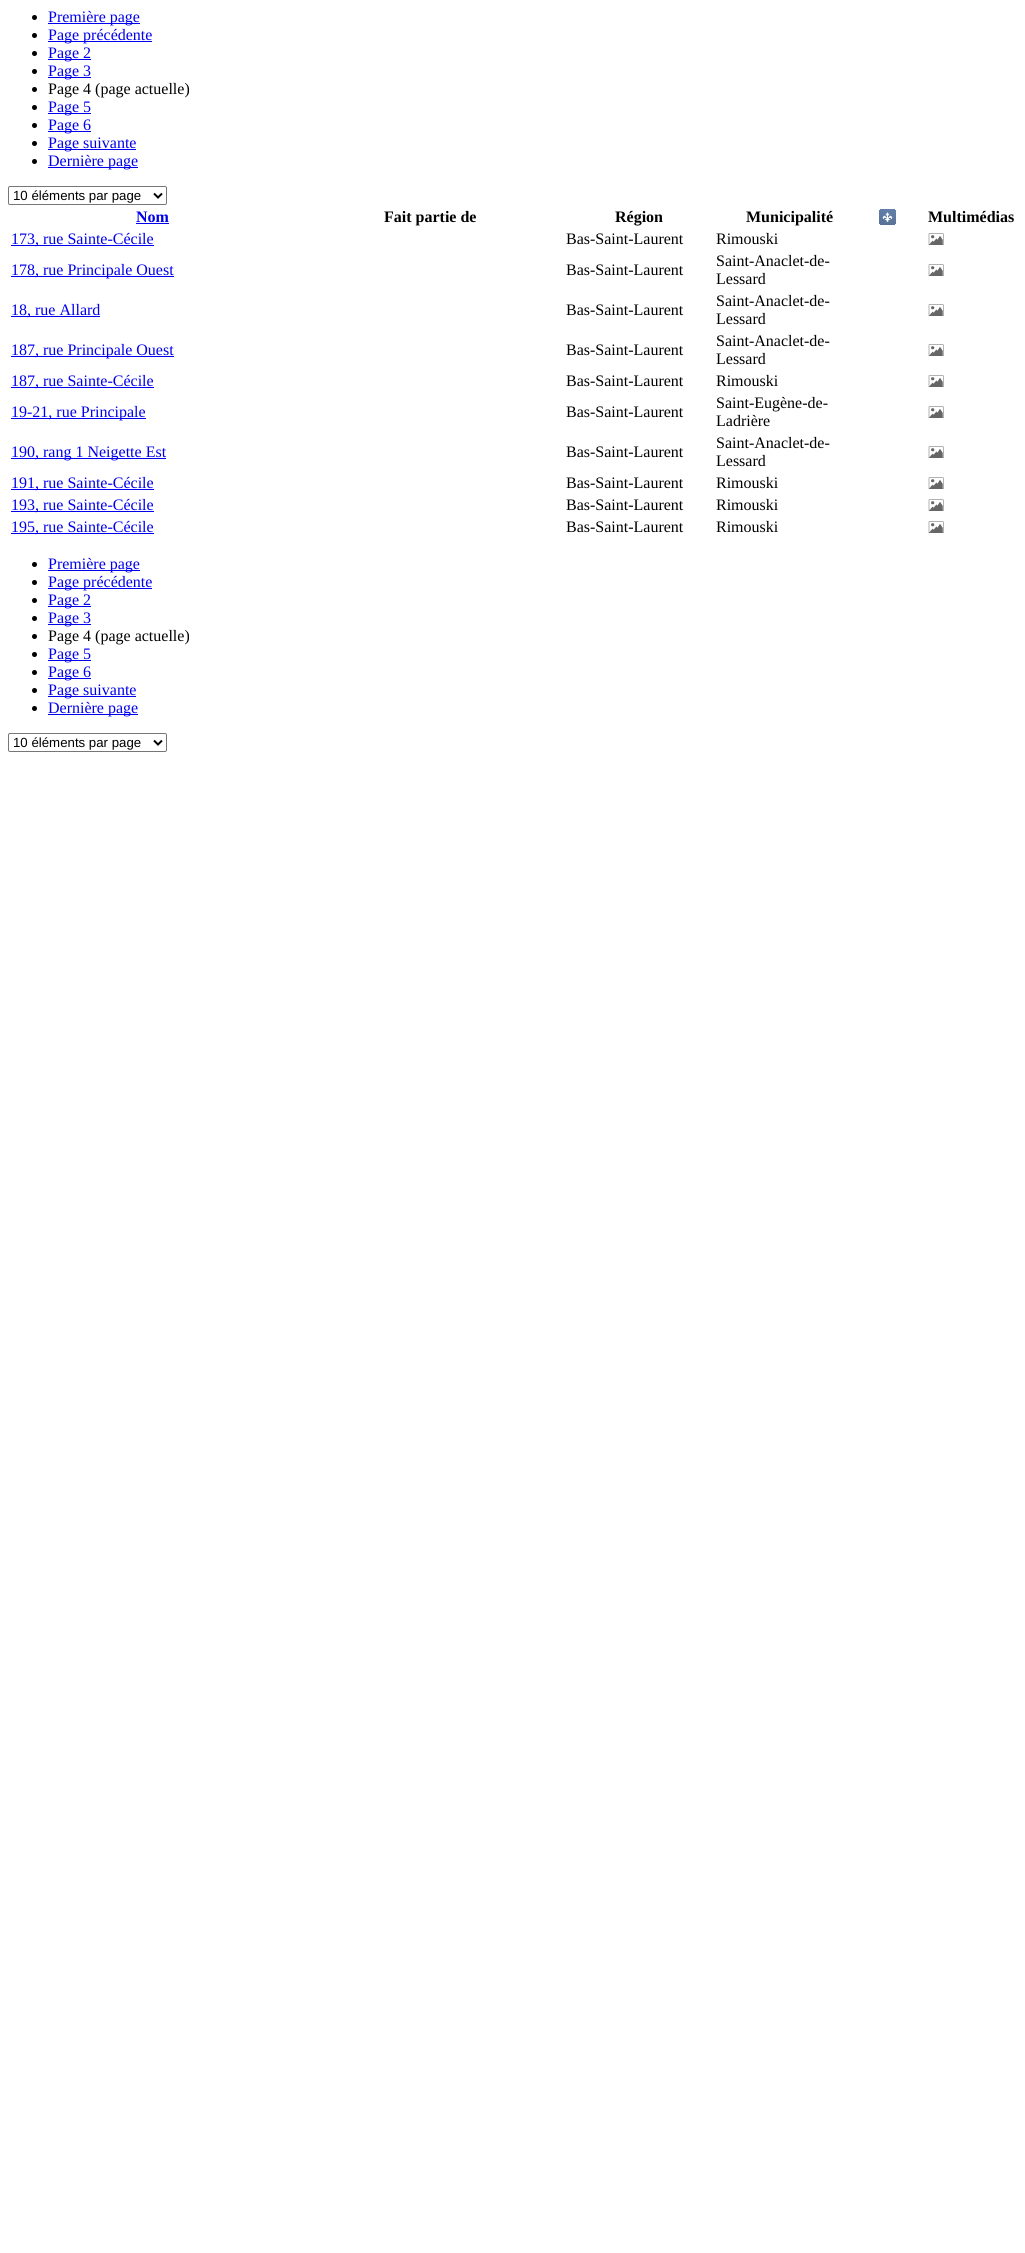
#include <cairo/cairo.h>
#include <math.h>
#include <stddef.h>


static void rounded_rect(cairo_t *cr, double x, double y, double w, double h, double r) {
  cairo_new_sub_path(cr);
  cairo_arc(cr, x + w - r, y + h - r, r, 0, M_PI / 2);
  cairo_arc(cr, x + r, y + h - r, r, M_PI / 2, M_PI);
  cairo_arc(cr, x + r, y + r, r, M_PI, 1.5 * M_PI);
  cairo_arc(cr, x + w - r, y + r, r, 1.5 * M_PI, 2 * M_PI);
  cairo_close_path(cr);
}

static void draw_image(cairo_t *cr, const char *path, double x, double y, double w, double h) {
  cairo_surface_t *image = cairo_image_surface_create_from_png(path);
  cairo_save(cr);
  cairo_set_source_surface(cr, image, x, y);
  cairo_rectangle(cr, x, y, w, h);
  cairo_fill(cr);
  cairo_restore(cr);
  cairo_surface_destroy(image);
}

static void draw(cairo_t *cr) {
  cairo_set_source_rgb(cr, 1, 1, 1);
  cairo_paint(cr);
  cairo_set_source_rgb(cr, 0, 0, 0);
  cairo_arc(cr, 34.5, 17.5, 2.5, 0, 2 * M_PI);
  cairo_fill(cr);
  cairo_set_source_rgb(cr, 0, 0, 238 / 255.0);
  cairo_rectangle(cr, 48, 23, 92, 1);
  cairo_fill(cr);
  cairo_set_source_rgb(cr, 0, 0, 0);
  cairo_arc(cr, 34.5, 35.5, 2.5, 0, 2 * M_PI);
  cairo_fill(cr);
  cairo_set_source_rgb(cr, 0, 0, 238 / 255.0);
  cairo_rectangle(cr, 48, 41, 104, 1);
  cairo_fill(cr);
  cairo_set_source_rgb(cr, 0, 0, 0);
  cairo_arc(cr, 34.5, 53.5, 2.5, 0, 2 * M_PI);
  cairo_fill(cr);
  cairo_set_source_rgb(cr, 0, 0, 238 / 255.0);
  cairo_rectangle(cr, 48, 59, 43, 1);
  cairo_fill(cr);
  cairo_set_source_rgb(cr, 0, 0, 0);
  cairo_arc(cr, 34.5, 71.5, 2.5, 0, 2 * M_PI);
  cairo_fill(cr);
  cairo_set_source_rgb(cr, 0, 0, 238 / 255.0);
  cairo_rectangle(cr, 48, 77, 43, 1);
  cairo_fill(cr);
  cairo_set_source_rgb(cr, 0, 0, 0);
  cairo_arc(cr, 34.5, 89.5, 2.5, 0, 2 * M_PI);
  cairo_fill(cr);
  cairo_arc(cr, 34.5, 107.5, 2.5, 0, 2 * M_PI);
  cairo_fill(cr);
  cairo_set_source_rgb(cr, 0, 0, 238 / 255.0);
  cairo_rectangle(cr, 48, 113, 43, 1);
  cairo_fill(cr);
  cairo_set_source_rgb(cr, 0, 0, 0);
  cairo_arc(cr, 34.5, 125.5, 2.5, 0, 2 * M_PI);
  cairo_fill(cr);
  cairo_set_source_rgb(cr, 0, 0, 238 / 255.0);
  cairo_rectangle(cr, 48, 131, 43, 1);
  cairo_fill(cr);
  cairo_set_source_rgb(cr, 0, 0, 0);
  cairo_arc(cr, 34.5, 143.5, 2.5, 0, 2 * M_PI);
  cairo_fill(cr);
  cairo_set_source_rgb(cr, 0, 0, 238 / 255.0);
  cairo_rectangle(cr, 48, 149, 88, 1);
  cairo_fill(cr);
  cairo_set_source_rgb(cr, 0, 0, 0);
  cairo_arc(cr, 34.5, 161.5, 2.5, 0, 2 * M_PI);
  cairo_fill(cr);
  cairo_set_source_rgb(cr, 0, 0, 238 / 255.0);
  cairo_rectangle(cr, 48, 167, 90, 1);
  cairo_fill(cr);
  rounded_rect(cr, 8.5, 186.5, 158, 18, 1.5);
  cairo_set_source_rgb(cr, 118 / 255.0, 118 / 255.0, 118 / 255.0);
  cairo_set_line_width(cr, 1);
  cairo_stroke(cr);
  cairo_new_path(cr);
  cairo_move_to(cr, 154, 193.5);
  cairo_line_to(cr, 158, 197.5);
  cairo_line_to(cr, 162, 193.5);
  cairo_set_source_rgb(cr, 0, 0, 0);
  cairo_set_line_width(cr, 2);
  cairo_stroke(cr);
  cairo_set_source_rgb(cr, 0, 0, 238 / 255.0);
  cairo_rectangle(cr, 136, 223, 33, 1);
  cairo_fill(cr);
  draw_image(cr, "images/1.png", 879, 209, 17, 16);
  cairo_rectangle(cr, 11, 245, 143, 1);
  cairo_fill(cr);
  draw_image(cr, "images/2.png", 928, 233, 16, 12);
  cairo_rectangle(cr, 11, 276, 163, 1);
  cairo_fill(cr);
  draw_image(cr, "images/2.png", 928, 264, 16, 12);
  cairo_rectangle(cr, 11, 316, 89, 1);
  cairo_fill(cr);
  draw_image(cr, "images/2.png", 928, 304, 16, 12);
  cairo_rectangle(cr, 11, 356, 163, 1);
  cairo_fill(cr);
  draw_image(cr, "images/2.png", 928, 344, 16, 12);
  cairo_rectangle(cr, 11, 387, 143, 1);
  cairo_fill(cr);
  draw_image(cr, "images/2.png", 928, 375, 16, 12);
  cairo_rectangle(cr, 11, 418, 135, 1);
  cairo_fill(cr);
  draw_image(cr, "images/2.png", 928, 406, 16, 12);
  cairo_rectangle(cr, 11, 458, 155, 1);
  cairo_fill(cr);
  draw_image(cr, "images/2.png", 928, 446, 16, 12);
  cairo_rectangle(cr, 11, 489, 143, 1);
  cairo_fill(cr);
  draw_image(cr, "images/2.png", 928, 477, 16, 12);
  cairo_rectangle(cr, 11, 511, 143, 1);
  cairo_fill(cr);
  draw_image(cr, "images/2.png", 928, 499, 16, 12);
  cairo_rectangle(cr, 11, 533, 143, 1);
  cairo_fill(cr);
  draw_image(cr, "images/2.png", 928, 521, 16, 12);
  cairo_set_source_rgb(cr, 0, 0, 0);
  cairo_arc(cr, 34.5, 564.5, 2.5, 0, 2 * M_PI);
  cairo_fill(cr);
  cairo_set_source_rgb(cr, 0, 0, 238 / 255.0);
  cairo_rectangle(cr, 48, 570, 92, 1);
  cairo_fill(cr);
  cairo_set_source_rgb(cr, 0, 0, 0);
  cairo_arc(cr, 34.5, 582.5, 2.5, 0, 2 * M_PI);
  cairo_fill(cr);
  cairo_set_source_rgb(cr, 0, 0, 238 / 255.0);
  cairo_rectangle(cr, 48, 588, 104, 1);
  cairo_fill(cr);
  cairo_set_source_rgb(cr, 0, 0, 0);
  cairo_arc(cr, 34.5, 600.5, 2.5, 0, 2 * M_PI);
  cairo_fill(cr);
  cairo_set_source_rgb(cr, 0, 0, 238 / 255.0);
  cairo_rectangle(cr, 48, 606, 43, 1);
  cairo_fill(cr);
  cairo_set_source_rgb(cr, 0, 0, 0);
  cairo_arc(cr, 34.5, 618.5, 2.5, 0, 2 * M_PI);
  cairo_fill(cr);
  cairo_set_source_rgb(cr, 0, 0, 238 / 255.0);
  cairo_rectangle(cr, 48, 624, 43, 1);
  cairo_fill(cr);
  cairo_set_source_rgb(cr, 0, 0, 0);
  cairo_arc(cr, 34.5, 636.5, 2.5, 0, 2 * M_PI);
  cairo_fill(cr);
  cairo_arc(cr, 34.5, 654.5, 2.5, 0, 2 * M_PI);
  cairo_fill(cr);
  cairo_set_source_rgb(cr, 0, 0, 238 / 255.0);
  cairo_rectangle(cr, 48, 660, 43, 1);
  cairo_fill(cr);
  cairo_set_source_rgb(cr, 0, 0, 0);
  cairo_arc(cr, 34.5, 672.5, 2.5, 0, 2 * M_PI);
  cairo_fill(cr);
  cairo_set_source_rgb(cr, 0, 0, 238 / 255.0);
  cairo_rectangle(cr, 48, 678, 43, 1);
  cairo_fill(cr);
  cairo_set_source_rgb(cr, 0, 0, 0);
  cairo_arc(cr, 34.5, 690.5, 2.5, 0, 2 * M_PI);
  cairo_fill(cr);
  cairo_set_source_rgb(cr, 0, 0, 238 / 255.0);
  cairo_rectangle(cr, 48, 696, 88, 1);
  cairo_fill(cr);
  cairo_set_source_rgb(cr, 0, 0, 0);
  cairo_arc(cr, 34.5, 708.5, 2.5, 0, 2 * M_PI);
  cairo_fill(cr);
  cairo_set_source_rgb(cr, 0, 0, 238 / 255.0);
  cairo_rectangle(cr, 48, 714, 90, 1);
  cairo_fill(cr);
  rounded_rect(cr, 8.5, 733.5, 158, 18, 1.5);
  cairo_set_source_rgb(cr, 118 / 255.0, 118 / 255.0, 118 / 255.0);
  cairo_set_line_width(cr, 1);
  cairo_stroke(cr);
  cairo_new_path(cr);
  cairo_move_to(cr, 154, 740.5);
  cairo_line_to(cr, 158, 744.5);
  cairo_line_to(cr, 162, 740.5);
  cairo_set_source_rgb(cr, 0, 0, 0);
  cairo_set_line_width(cr, 2);
  cairo_stroke(cr);
  cairo_select_font_face(cr, "Liberation Serif", CAIRO_FONT_SLANT_NORMAL, CAIRO_FONT_WEIGHT_NORMAL);
  cairo_set_font_size(cr, 16);
  cairo_set_source_rgb(cr, 0, 0, 238 / 255.0);
  cairo_move_to(cr, 48, 22);
  cairo_show_text(cr, "Première page");
  cairo_move_to(cr, 48, 40);
  cairo_show_text(cr, "Page précédente");
  cairo_move_to(cr, 48, 58);
  cairo_show_text(cr, "Page 2");
  cairo_move_to(cr, 48, 76);
  cairo_show_text(cr, "Page 3");
  cairo_set_source_rgb(cr, 0, 0, 0);
  cairo_move_to(cr, 48, 94);
  cairo_show_text(cr, "Page 4 (page actuelle)");
  cairo_set_source_rgb(cr, 0, 0, 238 / 255.0);
  cairo_move_to(cr, 48, 112);
  cairo_show_text(cr, "Page 5");
  cairo_move_to(cr, 48, 130);
  cairo_show_text(cr, "Page 6");
  cairo_move_to(cr, 48, 148);
  cairo_show_text(cr, "Page suivante");
  cairo_move_to(cr, 48, 166);
  cairo_show_text(cr, "Dernière page");
  cairo_select_font_face(cr, "Liberation Sans", CAIRO_FONT_SLANT_NORMAL, CAIRO_FONT_WEIGHT_NORMAL);
  cairo_set_font_size(cr, 13.25);
  cairo_set_source_rgb(cr, 0, 0, 0);
  cairo_move_to(cr, 13, 200);
  cairo_show_text(cr, "10 éléments par page");
  cairo_select_font_face(cr, "Liberation Serif", CAIRO_FONT_SLANT_NORMAL, CAIRO_FONT_WEIGHT_BOLD);
  cairo_set_font_size(cr, 16);
  cairo_set_source_rgb(cr, 0, 0, 238 / 255.0);
  cairo_move_to(cr, 136, 222);
  cairo_show_text(cr, "Nom");
  cairo_set_source_rgb(cr, 0, 0, 0);
  cairo_move_to(cr, 384, 222);
  cairo_show_text(cr, "Fait partie de");
  cairo_move_to(cr, 615, 222);
  cairo_show_text(cr, "Région");
  cairo_move_to(cr, 746, 222);
  cairo_show_text(cr, "Municipalité");
  cairo_move_to(cr, 928, 222);
  cairo_show_text(cr, "Multimédias");
  cairo_select_font_face(cr, "Liberation Serif", CAIRO_FONT_SLANT_NORMAL, CAIRO_FONT_WEIGHT_NORMAL);
  cairo_set_source_rgb(cr, 0, 0, 238 / 255.0);
  cairo_move_to(cr, 11, 244);
  cairo_show_text(cr, "173, rue Sainte-Cécile");
  cairo_set_source_rgb(cr, 0, 0, 0);
  cairo_move_to(cr, 566, 244);
  cairo_show_text(cr, "Bas-Saint-Laurent");
  cairo_move_to(cr, 716, 244);
  cairo_show_text(cr, "Rimouski");
  cairo_set_source_rgb(cr, 0, 0, 238 / 255.0);
  cairo_move_to(cr, 11, 275);
  cairo_show_text(cr, "178, rue Principale Ouest");
  cairo_set_source_rgb(cr, 0, 0, 0);
  cairo_move_to(cr, 566, 275);
  cairo_show_text(cr, "Bas-Saint-Laurent");
  cairo_move_to(cr, 716, 266);
  cairo_show_text(cr, "Saint-Anaclet-de-");
  cairo_move_to(cr, 716, 284);
  cairo_show_text(cr, "Lessard");
  cairo_set_source_rgb(cr, 0, 0, 238 / 255.0);
  cairo_move_to(cr, 11, 315);
  cairo_show_text(cr, "18, rue Allard");
  cairo_set_source_rgb(cr, 0, 0, 0);
  cairo_move_to(cr, 566, 315);
  cairo_show_text(cr, "Bas-Saint-Laurent");
  cairo_move_to(cr, 716, 306);
  cairo_show_text(cr, "Saint-Anaclet-de-");
  cairo_move_to(cr, 716, 324);
  cairo_show_text(cr, "Lessard");
  cairo_set_source_rgb(cr, 0, 0, 238 / 255.0);
  cairo_move_to(cr, 11, 355);
  cairo_show_text(cr, "187, rue Principale Ouest");
  cairo_set_source_rgb(cr, 0, 0, 0);
  cairo_move_to(cr, 566, 355);
  cairo_show_text(cr, "Bas-Saint-Laurent");
  cairo_move_to(cr, 716, 346);
  cairo_show_text(cr, "Saint-Anaclet-de-");
  cairo_move_to(cr, 716, 364);
  cairo_show_text(cr, "Lessard");
  cairo_set_source_rgb(cr, 0, 0, 238 / 255.0);
  cairo_move_to(cr, 11, 386);
  cairo_show_text(cr, "187, rue Sainte-Cécile");
  cairo_set_source_rgb(cr, 0, 0, 0);
  cairo_move_to(cr, 566, 386);
  cairo_show_text(cr, "Bas-Saint-Laurent");
  cairo_move_to(cr, 716, 386);
  cairo_show_text(cr, "Rimouski");
  cairo_set_source_rgb(cr, 0, 0, 238 / 255.0);
  cairo_move_to(cr, 11, 417);
  cairo_show_text(cr, "19-21, rue Principale");
  cairo_set_source_rgb(cr, 0, 0, 0);
  cairo_move_to(cr, 566, 417);
  cairo_show_text(cr, "Bas-Saint-Laurent");
  cairo_move_to(cr, 716, 408);
  cairo_show_text(cr, "Saint-Eugène-de-");
  cairo_move_to(cr, 716, 426);
  cairo_show_text(cr, "Ladrière");
  cairo_set_source_rgb(cr, 0, 0, 238 / 255.0);
  cairo_move_to(cr, 11, 457);
  cairo_show_text(cr, "190, rang 1 Neigette Est");
  cairo_set_source_rgb(cr, 0, 0, 0);
  cairo_move_to(cr, 566, 457);
  cairo_show_text(cr, "Bas-Saint-Laurent");
  cairo_move_to(cr, 716, 448);
  cairo_show_text(cr, "Saint-Anaclet-de-");
  cairo_move_to(cr, 716, 466);
  cairo_show_text(cr, "Lessard");
  cairo_set_source_rgb(cr, 0, 0, 238 / 255.0);
  cairo_move_to(cr, 11, 488);
  cairo_show_text(cr, "191, rue Sainte-Cécile");
  cairo_set_source_rgb(cr, 0, 0, 0);
  cairo_move_to(cr, 566, 488);
  cairo_show_text(cr, "Bas-Saint-Laurent");
  cairo_move_to(cr, 716, 488);
  cairo_show_text(cr, "Rimouski");
  cairo_set_source_rgb(cr, 0, 0, 238 / 255.0);
  cairo_move_to(cr, 11, 510);
  cairo_show_text(cr, "193, rue Sainte-Cécile");
  cairo_set_source_rgb(cr, 0, 0, 0);
  cairo_move_to(cr, 566, 510);
  cairo_show_text(cr, "Bas-Saint-Laurent");
  cairo_move_to(cr, 716, 510);
  cairo_show_text(cr, "Rimouski");
  cairo_set_source_rgb(cr, 0, 0, 238 / 255.0);
  cairo_move_to(cr, 11, 532);
  cairo_show_text(cr, "195, rue Sainte-Cécile");
  cairo_set_source_rgb(cr, 0, 0, 0);
  cairo_move_to(cr, 566, 532);
  cairo_show_text(cr, "Bas-Saint-Laurent");
  cairo_move_to(cr, 716, 532);
  cairo_show_text(cr, "Rimouski");
  cairo_set_source_rgb(cr, 0, 0, 238 / 255.0);
  cairo_move_to(cr, 48, 569);
  cairo_show_text(cr, "Première page");
  cairo_move_to(cr, 48, 587);
  cairo_show_text(cr, "Page précédente");
  cairo_move_to(cr, 48, 605);
  cairo_show_text(cr, "Page 2");
  cairo_move_to(cr, 48, 623);
  cairo_show_text(cr, "Page 3");
  cairo_set_source_rgb(cr, 0, 0, 0);
  cairo_move_to(cr, 48, 641);
  cairo_show_text(cr, "Page 4 (page actuelle)");
  cairo_set_source_rgb(cr, 0, 0, 238 / 255.0);
  cairo_move_to(cr, 48, 659);
  cairo_show_text(cr, "Page 5");
  cairo_move_to(cr, 48, 677);
  cairo_show_text(cr, "Page 6");
  cairo_move_to(cr, 48, 695);
  cairo_show_text(cr, "Page suivante");
  cairo_move_to(cr, 48, 713);
  cairo_show_text(cr, "Dernière page");
  cairo_select_font_face(cr, "Liberation Sans", CAIRO_FONT_SLANT_NORMAL, CAIRO_FONT_WEIGHT_NORMAL);
  cairo_set_font_size(cr, 13.25);
  cairo_set_source_rgb(cr, 0, 0, 0);
  cairo_move_to(cr, 13, 747);
  cairo_show_text(cr, "10 éléments par page");
}

int main(void) {
  cairo_surface_t *surface = cairo_image_surface_create(CAIRO_FORMAT_RGB24, 1025, 2253);
  cairo_t *cr = cairo_create(surface);
  cairo_font_options_t *options = cairo_font_options_create();
  cairo_font_options_set_hint_metrics(options, CAIRO_HINT_METRICS_OFF);
  cairo_font_options_set_hint_style(options, CAIRO_HINT_STYLE_NONE);
  cairo_set_font_options(cr, options);
  cairo_set_miter_limit(cr, 4);
  draw(cr);
  cairo_surface_write_to_png(surface, "out.png");
  cairo_font_options_destroy(options);
  cairo_destroy(cr);
  cairo_surface_destroy(surface);
  return 0;
}
